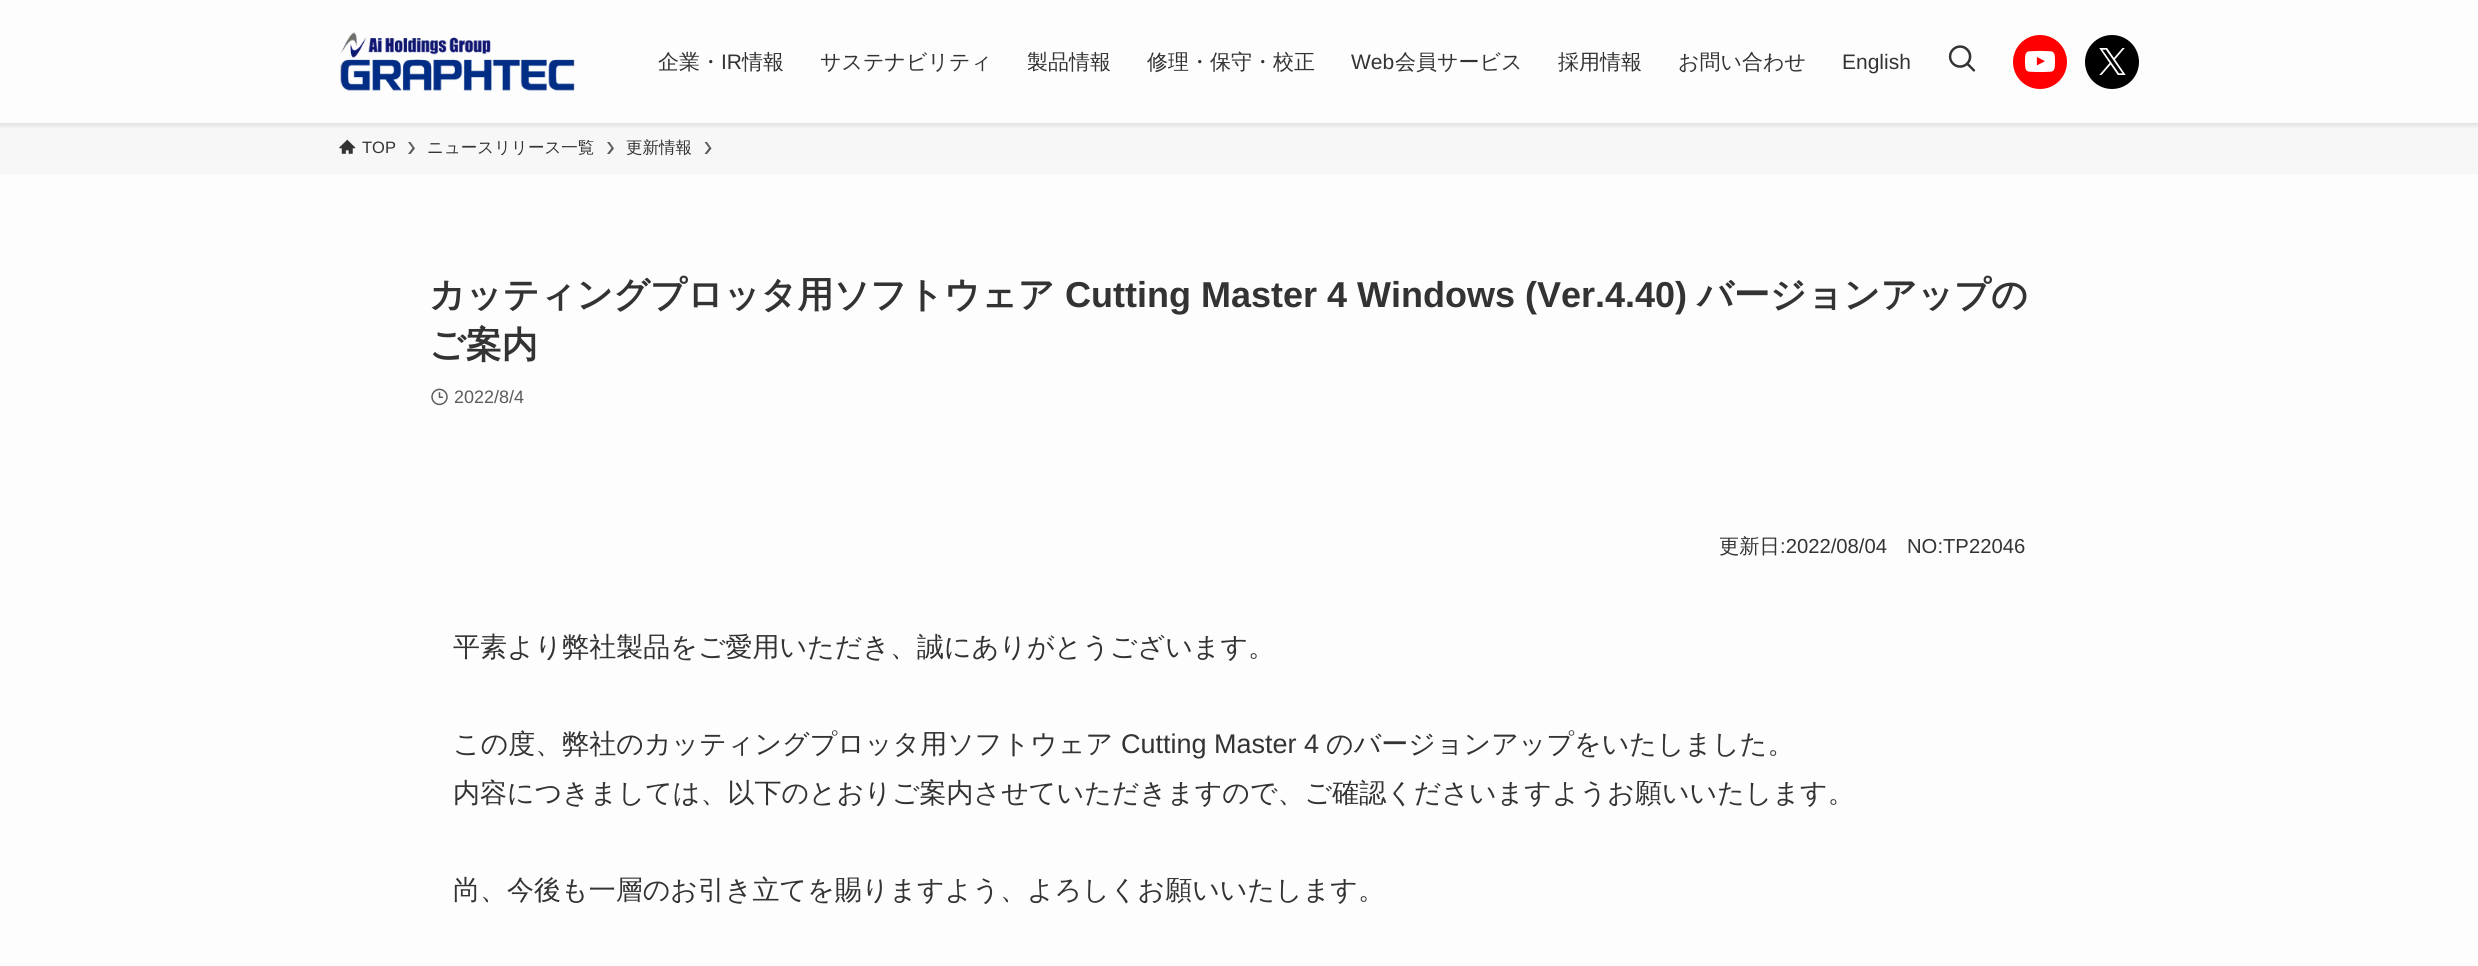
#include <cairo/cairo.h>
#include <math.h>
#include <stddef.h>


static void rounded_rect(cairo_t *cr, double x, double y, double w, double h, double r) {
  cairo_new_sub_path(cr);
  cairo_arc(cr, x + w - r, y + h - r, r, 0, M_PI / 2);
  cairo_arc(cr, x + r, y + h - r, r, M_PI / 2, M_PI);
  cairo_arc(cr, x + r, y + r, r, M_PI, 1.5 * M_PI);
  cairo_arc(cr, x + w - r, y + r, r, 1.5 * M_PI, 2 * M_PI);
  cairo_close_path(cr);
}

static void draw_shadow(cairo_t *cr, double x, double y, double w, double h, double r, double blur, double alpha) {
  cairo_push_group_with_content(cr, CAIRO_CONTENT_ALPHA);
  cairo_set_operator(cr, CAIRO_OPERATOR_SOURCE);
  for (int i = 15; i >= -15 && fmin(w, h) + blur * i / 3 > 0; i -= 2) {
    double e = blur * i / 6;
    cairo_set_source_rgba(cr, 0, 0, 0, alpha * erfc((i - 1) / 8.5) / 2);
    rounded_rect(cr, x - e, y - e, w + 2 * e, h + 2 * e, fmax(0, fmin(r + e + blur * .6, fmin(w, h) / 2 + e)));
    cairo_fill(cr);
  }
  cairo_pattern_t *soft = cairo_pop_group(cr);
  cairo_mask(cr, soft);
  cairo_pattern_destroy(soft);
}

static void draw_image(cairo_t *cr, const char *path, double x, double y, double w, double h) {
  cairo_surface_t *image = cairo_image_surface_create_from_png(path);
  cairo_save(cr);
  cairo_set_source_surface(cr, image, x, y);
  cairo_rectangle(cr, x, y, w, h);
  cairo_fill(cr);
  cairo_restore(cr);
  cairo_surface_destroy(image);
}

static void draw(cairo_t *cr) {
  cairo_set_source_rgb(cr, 253 / 255.0, 253 / 255.0, 253 / 255.0);
  cairo_paint(cr);
  cairo_set_source_rgb(cr, 247 / 255.0, 247 / 255.0, 247 / 255.0);
  cairo_rectangle(cr, 0, 123, 2478, 51);
  cairo_fill(cr);
  cairo_save(cr);
  cairo_rectangle(cr, 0, 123, 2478, 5);
  cairo_clip(cr);
  cairo_set_source_rgb(cr, 0, 0, 0);
  draw_shadow(cr, 0, 2, 2478, 123, 0, 3, 0.12);
  cairo_restore(cr);
  draw_image(cr, "images/1.png", 340, 32, 235, 59);
  draw_image(cr, "images/2.png", 1948, 45, 28, 27);
  cairo_set_source_rgb(cr, 1, 0, 0);
  cairo_arc(cr, 2040, 62, 27, 0, 2 * M_PI);
  cairo_fill(cr);
  draw_image(cr, "images/3.png", 2025, 50, 30, 23);
  cairo_set_source_rgb(cr, 0, 0, 0);
  cairo_arc(cr, 2112, 62, 27, 0, 2 * M_PI);
  cairo_fill(cr);
  draw_image(cr, "images/4.png", 2099, 48, 27, 27);
  draw_image(cr, "images/5.png", 339, 139, 17, 15);
  cairo_set_source_rgb(cr, 90 / 255.0, 90 / 255.0, 90 / 255.0);
  cairo_new_path(cr);
  cairo_move_to(cr, 410.5, 142);
  cairo_line_to(cr, 408, 142);
  cairo_line_to(cr, 412.5, 148);
  cairo_line_to(cr, 408, 154);
  cairo_line_to(cr, 410.5, 154);
  cairo_line_to(cr, 415, 148.5);
  cairo_close_path(cr);
  cairo_fill(cr);
  cairo_new_path(cr);
  cairo_move_to(cr, 609.5, 142);
  cairo_line_to(cr, 607, 142);
  cairo_line_to(cr, 611.5, 148);
  cairo_line_to(cr, 607, 154);
  cairo_line_to(cr, 609.5, 154);
  cairo_line_to(cr, 614, 148.5);
  cairo_close_path(cr);
  cairo_fill(cr);
  cairo_new_path(cr);
  cairo_move_to(cr, 707, 142);
  cairo_line_to(cr, 704.5, 142);
  cairo_line_to(cr, 709, 148);
  cairo_line_to(cr, 704.5, 154);
  cairo_line_to(cr, 707, 154);
  cairo_line_to(cr, 711.5, 148.5);
  cairo_close_path(cr);
  cairo_fill(cr);
  draw_image(cr, "images/6.png", 431, 388, 17, 18);
  cairo_select_font_face(cr, "WenQuanYi Zen Hei Medium", CAIRO_FONT_SLANT_NORMAL, CAIRO_FONT_WEIGHT_NORMAL);
  cairo_set_font_size(cr, 21);
  cairo_set_source_rgb(cr, 51 / 255.0, 51 / 255.0, 51 / 255.0);
  cairo_move_to(cr, 658, 69);
  cairo_show_text(cr, "企業・");
  cairo_select_font_face(cr, "Liberation Sans", CAIRO_FONT_SLANT_NORMAL, CAIRO_FONT_WEIGHT_NORMAL);
  cairo_move_to(cr, 721, 69);
  cairo_show_text(cr, "IR");
  cairo_select_font_face(cr, "WenQuanYi Zen Hei Medium", CAIRO_FONT_SLANT_NORMAL, CAIRO_FONT_WEIGHT_NORMAL);
  cairo_move_to(cr, 742, 69);
  cairo_show_text(cr, "情報");
  cairo_move_to(cr, 820, 69);
  cairo_show_text(cr, "サステナビリティ");
  cairo_move_to(cr, 1027, 69);
  cairo_show_text(cr, "製品情報");
  cairo_move_to(cr, 1147, 69);
  cairo_show_text(cr, "修理・保守・校正");
  cairo_select_font_face(cr, "Liberation Sans", CAIRO_FONT_SLANT_NORMAL, CAIRO_FONT_WEIGHT_NORMAL);
  cairo_move_to(cr, 1351, 69);
  cairo_show_text(cr, "Web");
  cairo_select_font_face(cr, "WenQuanYi Zen Hei Medium", CAIRO_FONT_SLANT_NORMAL, CAIRO_FONT_WEIGHT_NORMAL);
  cairo_move_to(cr, 1395, 69);
  cairo_show_text(cr, "会員サービス");
  cairo_move_to(cr, 1558, 69);
  cairo_show_text(cr, "採用情報");
  cairo_move_to(cr, 1678, 69);
  cairo_show_text(cr, "お問い合わせ");
  cairo_select_font_face(cr, "Liberation Sans", CAIRO_FONT_SLANT_NORMAL, CAIRO_FONT_WEIGHT_NORMAL);
  cairo_move_to(cr, 1842, 69);
  cairo_show_text(cr, "English");
  cairo_set_font_size(cr, 16.5);
  cairo_move_to(cr, 362, 153);
  cairo_show_text(cr, "TOP");
  cairo_select_font_face(cr, "WenQuanYi Zen Hei Medium", CAIRO_FONT_SLANT_NORMAL, CAIRO_FONT_WEIGHT_NORMAL);
  cairo_move_to(cr, 427, 153);
  cairo_show_text(cr, "ニュースリリース一覧");
  cairo_move_to(cr, 626, 153);
  cairo_show_text(cr, "更新情報");
  cairo_select_font_face(cr, "WenQuanYi Zen Hei", CAIRO_FONT_SLANT_NORMAL, CAIRO_FONT_WEIGHT_BOLD);
  cairo_set_font_size(cr, 36);
  cairo_move_to(cr, 429, 307);
  cairo_show_text(cr, "カッティングプロッタ用ソフトウェア");
  cairo_select_font_face(cr, "Liberation Sans", CAIRO_FONT_SLANT_NORMAL, CAIRO_FONT_WEIGHT_BOLD);
  cairo_move_to(cr, 1065, 307);
  cairo_show_text(cr, "Cutting Master 4 Windows (Ver.4.40)");
  cairo_select_font_face(cr, "WenQuanYi Zen Hei", CAIRO_FONT_SLANT_NORMAL, CAIRO_FONT_WEIGHT_BOLD);
  cairo_move_to(cr, 1697, 307);
  cairo_show_text(cr, "バージョンアップの");
  cairo_move_to(cr, 429, 357);
  cairo_show_text(cr, "ご案内");
  cairo_select_font_face(cr, "Liberation Sans", CAIRO_FONT_SLANT_NORMAL, CAIRO_FONT_WEIGHT_NORMAL);
  cairo_set_font_size(cr, 18);
  cairo_set_source_rgb(cr, 91 / 255.0, 91 / 255.0, 91 / 255.0);
  cairo_move_to(cr, 454, 403);
  cairo_show_text(cr, "2022/8/4");
  cairo_select_font_face(cr, "WenQuanYi Zen Hei Medium", CAIRO_FONT_SLANT_NORMAL, CAIRO_FONT_WEIGHT_NORMAL);
  cairo_set_font_size(cr, 20.25);
  cairo_set_source_rgb(cr, 51 / 255.0, 51 / 255.0, 51 / 255.0);
  cairo_move_to(cr, 1719, 553);
  cairo_show_text(cr, "更新日");
  cairo_select_font_face(cr, "Liberation Sans", CAIRO_FONT_SLANT_NORMAL, CAIRO_FONT_WEIGHT_NORMAL);
  cairo_move_to(cr, 1780, 553);
  cairo_show_text(cr, ":2022/08/04");
  cairo_move_to(cr, 1907, 553);
  cairo_show_text(cr, "NO:TP22046");
  cairo_select_font_face(cr, "WenQuanYi Zen Hei Medium", CAIRO_FONT_SLANT_NORMAL, CAIRO_FONT_WEIGHT_NORMAL);
  cairo_set_font_size(cr, 27);
  cairo_move_to(cr, 453, 656);
  cairo_show_text(cr, "平素より弊社製品をご愛用いただき、誠にありがとうございます。");
  cairo_move_to(cr, 453, 753);
  cairo_show_text(cr, "この度、弊社のカッティングプロッタ用ソフトウェア");
  cairo_select_font_face(cr, "Liberation Sans", CAIRO_FONT_SLANT_NORMAL, CAIRO_FONT_WEIGHT_NORMAL);
  cairo_move_to(cr, 1121, 753);
  cairo_show_text(cr, "Cutting Master 4");
  cairo_select_font_face(cr, "WenQuanYi Zen Hei Medium", CAIRO_FONT_SLANT_NORMAL, CAIRO_FONT_WEIGHT_NORMAL);
  cairo_move_to(cr, 1326, 753);
  cairo_show_text(cr, "のバージョンアップをいたしました。");
  cairo_move_to(cr, 453, 802);
  cairo_show_text(cr, "内容につきましては、以下のとおりご案内させていただきますので、ご確認くださいますようお願いいたします。");
  cairo_move_to(cr, 453, 899);
  cairo_show_text(cr, "尚、今後も一層のお引き立てを賜りますよう、よろしくお願いいたします。");
}

int main(void) {
  cairo_surface_t *surface = cairo_image_surface_create(CAIRO_FORMAT_RGB24, 2478, 966);
  cairo_t *cr = cairo_create(surface);
  cairo_font_options_t *options = cairo_font_options_create();
  cairo_font_options_set_hint_metrics(options, CAIRO_HINT_METRICS_OFF);
  cairo_font_options_set_hint_style(options, CAIRO_HINT_STYLE_NONE);
  cairo_set_font_options(cr, options);
  cairo_set_miter_limit(cr, 4);
  draw(cr);
  cairo_surface_write_to_png(surface, "out.png");
  cairo_font_options_destroy(options);
  cairo_destroy(cr);
  cairo_surface_destroy(surface);
  return 0;
}
